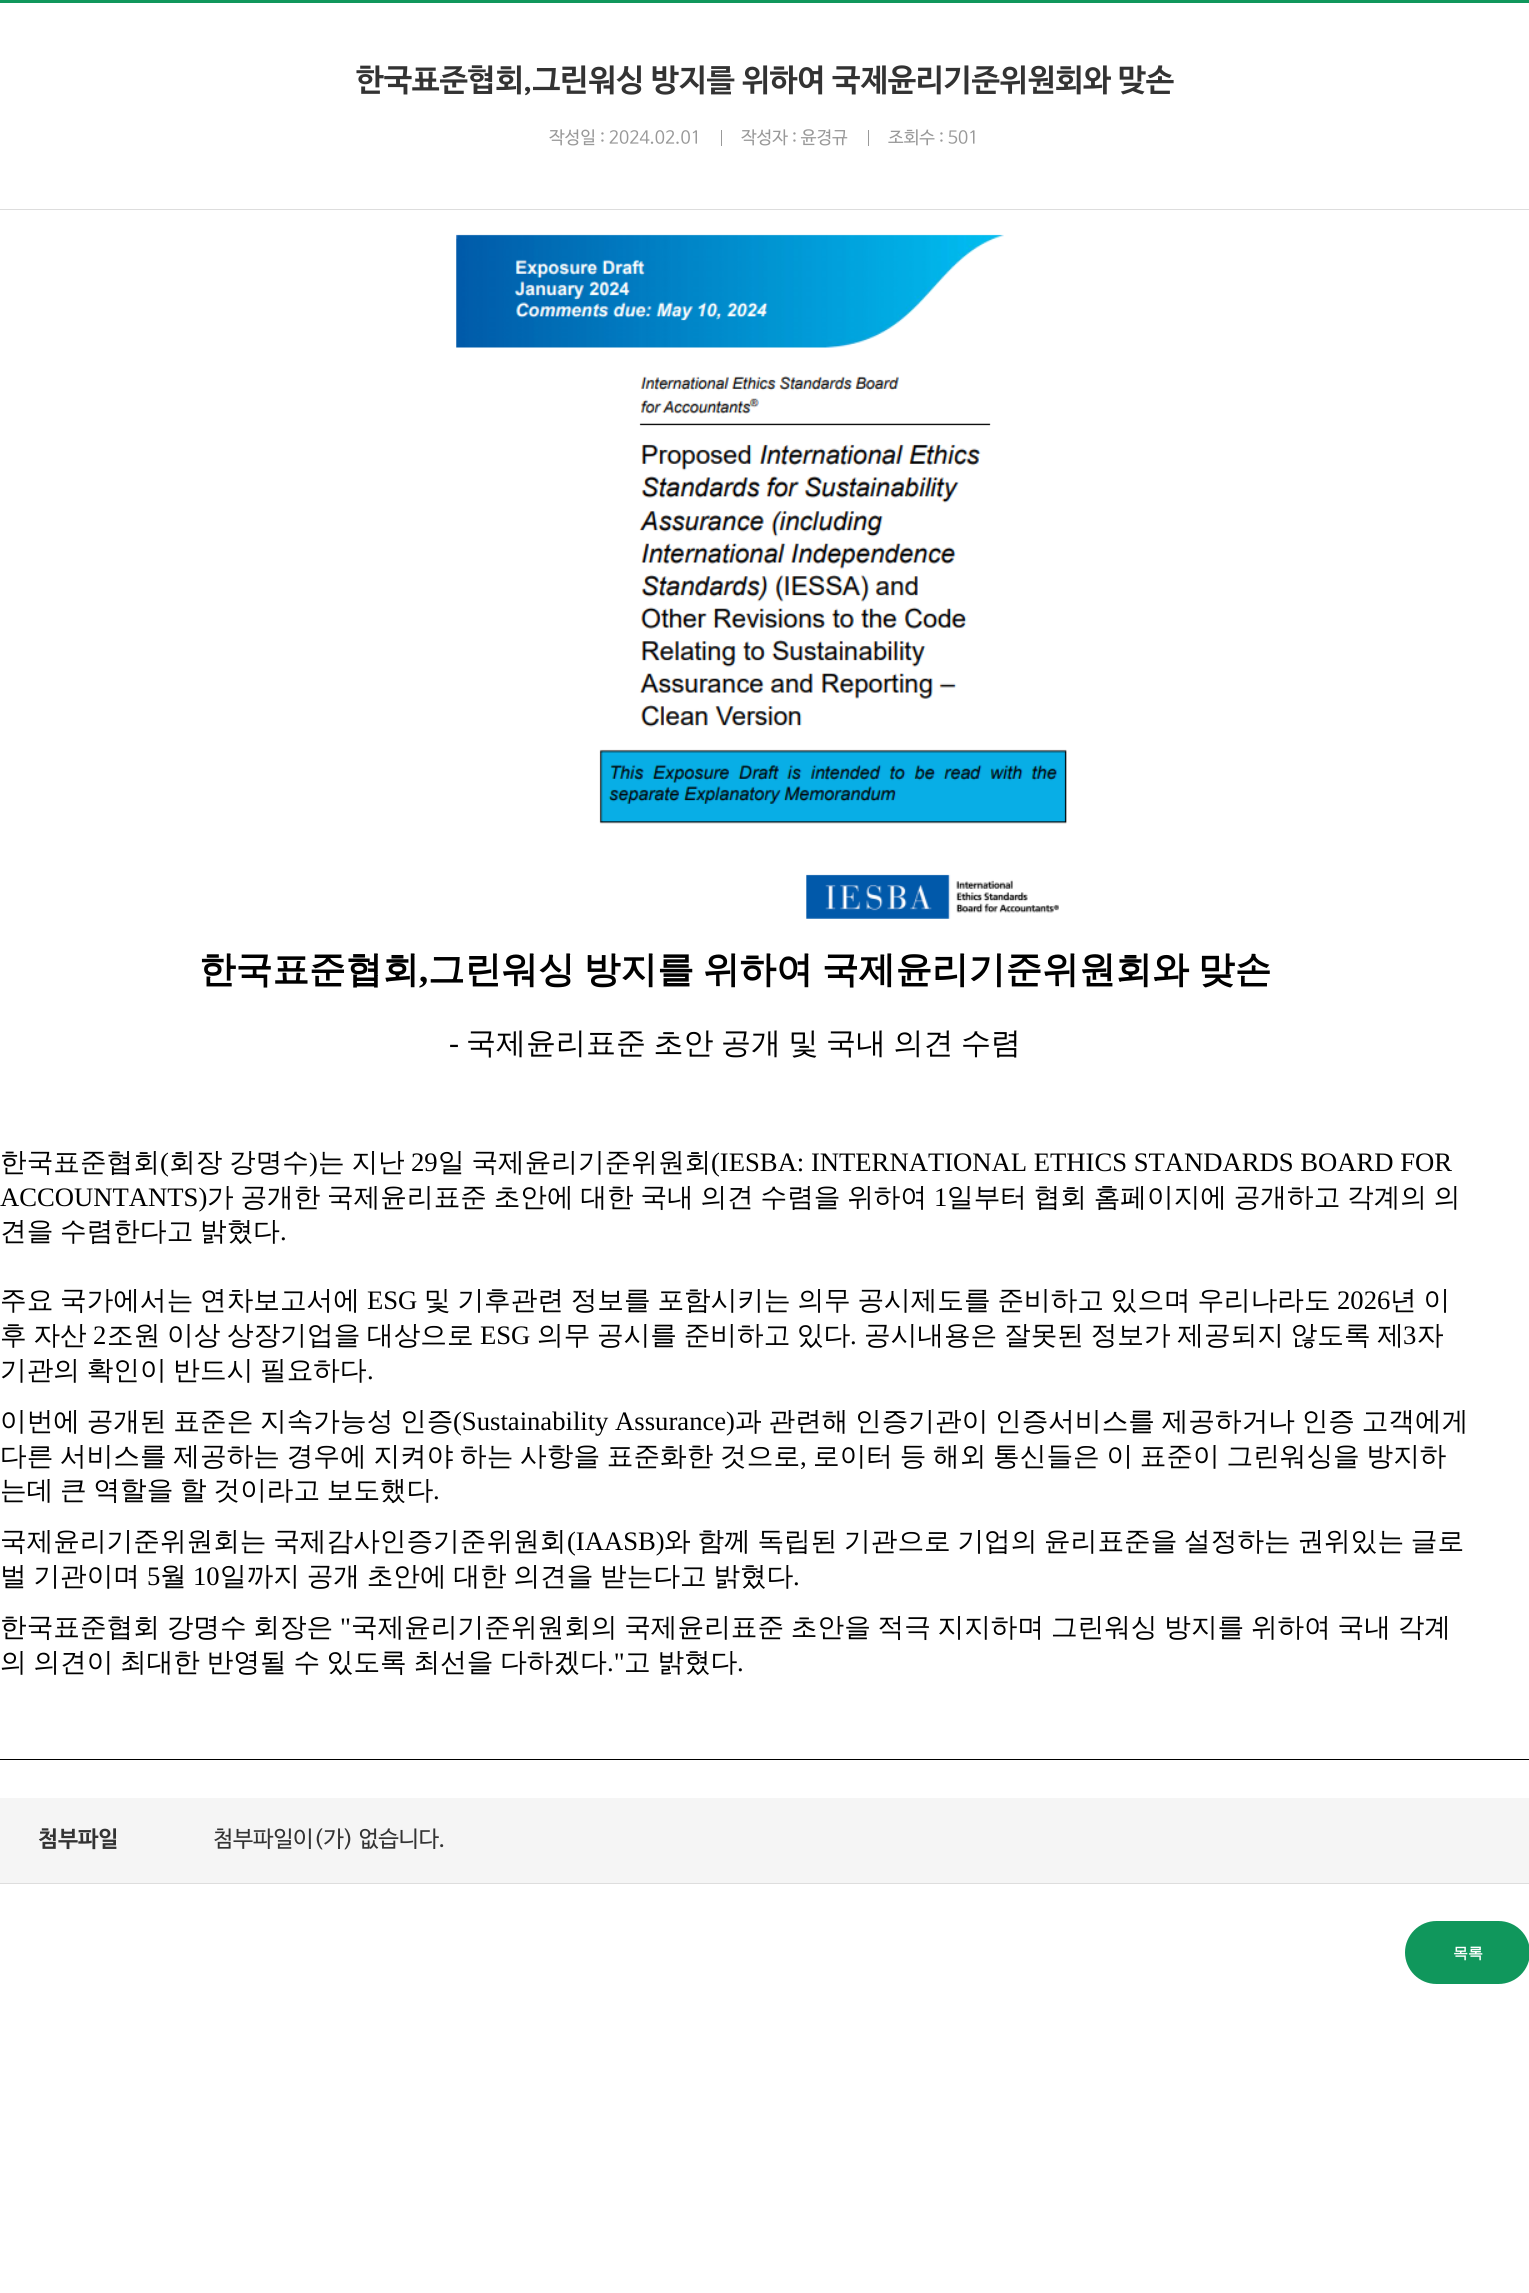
#include <cairo/cairo.h>
#include <math.h>
#include <stddef.h>


static void draw_spaced(cairo_t *cr, double x, double y, const char *s, double letter, double word) {
  cairo_move_to(cr, x, y);
  while (*s) {
    char ch[5] = {0};
    int n = 0;
    do ch[n++] = *s++; while ((*s & 0xC0) == 0x80);
    cairo_show_text(cr, ch);
    cairo_rel_move_to(cr, letter + word * (*ch == ' '), 0);
  }
}

static void rounded_rect(cairo_t *cr, double x, double y, double w, double h, double r) {
  cairo_new_sub_path(cr);
  cairo_arc(cr, x + w - r, y + h - r, r, 0, M_PI / 2);
  cairo_arc(cr, x + r, y + h - r, r, M_PI / 2, M_PI);
  cairo_arc(cr, x + r, y + r, r, M_PI, 1.5 * M_PI);
  cairo_arc(cr, x + w - r, y + r, r, 1.5 * M_PI, 2 * M_PI);
  cairo_close_path(cr);
}

static void draw_image(cairo_t *cr, const char *path, double x, double y, double w, double h) {
  cairo_surface_t *image = cairo_image_surface_create_from_png(path);
  cairo_save(cr);
  cairo_set_source_surface(cr, image, x, y);
  cairo_rectangle(cr, x, y, w, h);
  cairo_fill(cr);
  cairo_restore(cr);
  cairo_surface_destroy(image);
}

static void draw(cairo_t *cr) {
  cairo_set_source_rgb(cr, 1, 1, 1);
  cairo_paint(cr);
  cairo_set_source_rgb(cr, 16 / 255.0, 151 / 255.0, 92 / 255.0);
  cairo_rectangle(cr, 0, 0, 1529, 3);
  cairo_fill(cr);
  cairo_set_source_rgb(cr, 221 / 255.0, 221 / 255.0, 221 / 255.0);
  cairo_rectangle(cr, 0, 209, 1529, 1);
  cairo_fill(cr);
  cairo_set_source_rgb(cr, 153 / 255.0, 153 / 255.0, 153 / 255.0);
  cairo_rectangle(cr, 721, 130, 1, 16);
  cairo_fill(cr);
  cairo_rectangle(cr, 868, 130, 1, 16);
  cairo_fill(cr);
  cairo_set_source_rgb(cr, 0, 0, 0);
  cairo_rectangle(cr, 0, 1759, 1529, 1);
  cairo_fill(cr);
  draw_image(cr, "images/1.png", 456, 234, 611, 685);
  cairo_set_source_rgb(cr, 245 / 255.0, 245 / 255.0, 245 / 255.0);
  cairo_rectangle(cr, 0, 1798, 1529, 85);
  cairo_fill(cr);
  cairo_set_source_rgb(cr, 221 / 255.0, 221 / 255.0, 221 / 255.0);
  cairo_rectangle(cr, 0, 1883, 1529, 1);
  cairo_fill(cr);
  cairo_set_source_rgb(cr, 16 / 255.0, 151 / 255.0, 92 / 255.0);
  rounded_rect(cr, 1405, 1921, 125, 63, 31.5);
  cairo_fill(cr);
  cairo_select_font_face(cr, "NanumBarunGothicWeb", CAIRO_FONT_SLANT_NORMAL, CAIRO_FONT_WEIGHT_BOLD);
  cairo_set_font_size(cr, 31.25);
  cairo_set_source_rgb(cr, 51 / 255.0, 51 / 255.0, 51 / 255.0);
  cairo_move_to(cr, 356, 90);
  cairo_show_text(cr, "한국표준협회,그린워싱 방지를 위하여 국제윤리기준위원회와 맞손");
  cairo_select_font_face(cr, "NanumBarunGothicWeb", CAIRO_FONT_SLANT_NORMAL, CAIRO_FONT_WEIGHT_NORMAL);
  cairo_set_font_size(cr, 17.5);
  cairo_set_source_rgb(cr, 153 / 255.0, 153 / 255.0, 153 / 255.0);
  cairo_move_to(cr, 549, 143);
  cairo_show_text(cr, "작성일 : 2024.02.01");
  cairo_move_to(cr, 741, 143);
  cairo_show_text(cr, "작성자 : 윤경규");
  cairo_move_to(cr, 888, 143);
  cairo_show_text(cr, "조회수 : 501");
  cairo_select_font_face(cr, "WenQuanYi Zen Hei", CAIRO_FONT_SLANT_NORMAL, CAIRO_FONT_WEIGHT_BOLD);
  cairo_set_font_size(cr, 36.7);
  cairo_set_source_rgb(cr, 0, 0, 0);
  cairo_move_to(cr, 199, 982);
  cairo_show_text(cr, "한국표준협회");
  cairo_select_font_face(cr, "Liberation Serif", CAIRO_FONT_SLANT_NORMAL, CAIRO_FONT_WEIGHT_BOLD);
  cairo_move_to(cr, 419, 982);
  cairo_show_text(cr, ",");
  cairo_select_font_face(cr, "WenQuanYi Zen Hei", CAIRO_FONT_SLANT_NORMAL, CAIRO_FONT_WEIGHT_BOLD);
  draw_spaced(cr, 428, 982, "그린워싱 방지를 위하여 국제윤리기준위원회와 맞손", 0, -2);
  cairo_select_font_face(cr, "Liberation Serif", CAIRO_FONT_SLANT_NORMAL, CAIRO_FONT_WEIGHT_NORMAL);
  cairo_set_font_size(cr, 30);
  cairo_move_to(cr, 449, 1053);
  cairo_show_text(cr, "-");
  cairo_select_font_face(cr, "WenQuanYi Zen Hei Medium", CAIRO_FONT_SLANT_NORMAL, CAIRO_FONT_WEIGHT_NORMAL);
  draw_spaced(cr, 466, 1053, "국제윤리표준 초안 공개 및 국내 의견 수렴", 0, -1.5);
  cairo_set_font_size(cr, 26.65);
  cairo_move_to(cr, 0, 1171);
  cairo_show_text(cr, "한국표준협회");
  cairo_select_font_face(cr, "Liberation Serif", CAIRO_FONT_SLANT_NORMAL, CAIRO_FONT_WEIGHT_NORMAL);
  cairo_move_to(cr, 160, 1171);
  cairo_show_text(cr, "(");
  cairo_select_font_face(cr, "WenQuanYi Zen Hei Medium", CAIRO_FONT_SLANT_NORMAL, CAIRO_FONT_WEIGHT_NORMAL);
  draw_spaced(cr, 169, 1171, "회장 강명수", 0, -1.25);
  cairo_select_font_face(cr, "Liberation Serif", CAIRO_FONT_SLANT_NORMAL, CAIRO_FONT_WEIGHT_NORMAL);
  cairo_move_to(cr, 309, 1171);
  cairo_show_text(cr, ")");
  cairo_select_font_face(cr, "WenQuanYi Zen Hei Medium", CAIRO_FONT_SLANT_NORMAL, CAIRO_FONT_WEIGHT_NORMAL);
  draw_spaced(cr, 318, 1171, "는 지난", 0, -1.25);
  cairo_select_font_face(cr, "Liberation Serif", CAIRO_FONT_SLANT_NORMAL, CAIRO_FONT_WEIGHT_NORMAL);
  cairo_move_to(cr, 411, 1171);
  cairo_show_text(cr, "29");
  cairo_select_font_face(cr, "WenQuanYi Zen Hei Medium", CAIRO_FONT_SLANT_NORMAL, CAIRO_FONT_WEIGHT_NORMAL);
  draw_spaced(cr, 438, 1171, "일 국제윤리기준위원회", 0, -1.25);
  cairo_select_font_face(cr, "Liberation Serif", CAIRO_FONT_SLANT_NORMAL, CAIRO_FONT_WEIGHT_NORMAL);
  cairo_move_to(cr, 711, 1171);
  cairo_show_text(cr, "(IESBA: INTERNATIONAL ETHICS STANDARDS BOARD FOR");
  cairo_move_to(cr, 0, 1206);
  cairo_show_text(cr, "ACCOUNTANTS)");
  cairo_select_font_face(cr, "WenQuanYi Zen Hei Medium", CAIRO_FONT_SLANT_NORMAL, CAIRO_FONT_WEIGHT_NORMAL);
  draw_spaced(cr, 207, 1206, "가 공개한 국제윤리표준 초안에 대한 국내 의견 수렴을 위하여", 0, -1.25);
  cairo_select_font_face(cr, "Liberation Serif", CAIRO_FONT_SLANT_NORMAL, CAIRO_FONT_WEIGHT_NORMAL);
  cairo_move_to(cr, 934, 1206);
  cairo_show_text(cr, "1");
  cairo_select_font_face(cr, "WenQuanYi Zen Hei Medium", CAIRO_FONT_SLANT_NORMAL, CAIRO_FONT_WEIGHT_NORMAL);
  draw_spaced(cr, 947, 1206, "일부터 협회 홈페이지에 공개하고 각계의 의", 0, -1.25);
  draw_spaced(cr, 0, 1240, "견을 수렴한다고 밝혔다", 0, -1.25);
  cairo_select_font_face(cr, "Liberation Serif", CAIRO_FONT_SLANT_NORMAL, CAIRO_FONT_WEIGHT_NORMAL);
  cairo_move_to(cr, 280, 1240);
  cairo_show_text(cr, ".");
  cairo_select_font_face(cr, "WenQuanYi Zen Hei Medium", CAIRO_FONT_SLANT_NORMAL, CAIRO_FONT_WEIGHT_NORMAL);
  draw_spaced(cr, 0, 1309, "주요 국가에서는 연차보고서에", 0, -1.25);
  cairo_select_font_face(cr, "Liberation Serif", CAIRO_FONT_SLANT_NORMAL, CAIRO_FONT_WEIGHT_NORMAL);
  cairo_move_to(cr, 367, 1309);
  cairo_show_text(cr, "ESG");
  cairo_select_font_face(cr, "WenQuanYi Zen Hei Medium", CAIRO_FONT_SLANT_NORMAL, CAIRO_FONT_WEIGHT_NORMAL);
  draw_spaced(cr, 424, 1309, "및 기후관련 정보를 포함시키는 의무 공시제도를 준비하고 있으며 우리나라도", 0, -1.25);
  cairo_select_font_face(cr, "Liberation Serif", CAIRO_FONT_SLANT_NORMAL, CAIRO_FONT_WEIGHT_NORMAL);
  cairo_move_to(cr, 1337, 1309);
  cairo_show_text(cr, "2026");
  cairo_select_font_face(cr, "WenQuanYi Zen Hei Medium", CAIRO_FONT_SLANT_NORMAL, CAIRO_FONT_WEIGHT_NORMAL);
  draw_spaced(cr, 1390, 1309, "년 이", 0, -1.25);
  draw_spaced(cr, 0, 1344, "후 자산", 0, -1.25);
  cairo_select_font_face(cr, "Liberation Serif", CAIRO_FONT_SLANT_NORMAL, CAIRO_FONT_WEIGHT_NORMAL);
  cairo_move_to(cr, 93, 1344);
  cairo_show_text(cr, "2");
  cairo_select_font_face(cr, "WenQuanYi Zen Hei Medium", CAIRO_FONT_SLANT_NORMAL, CAIRO_FONT_WEIGHT_NORMAL);
  draw_spaced(cr, 107, 1344, "조원 이상 상장기업을 대상으로", 0, -1.25);
  cairo_select_font_face(cr, "Liberation Serif", CAIRO_FONT_SLANT_NORMAL, CAIRO_FONT_WEIGHT_NORMAL);
  cairo_move_to(cr, 480, 1344);
  cairo_show_text(cr, "ESG");
  cairo_select_font_face(cr, "WenQuanYi Zen Hei Medium", CAIRO_FONT_SLANT_NORMAL, CAIRO_FONT_WEIGHT_NORMAL);
  draw_spaced(cr, 537, 1344, "의무 공시를 준비하고 있다", 0, -1.25);
  cairo_select_font_face(cr, "Liberation Serif", CAIRO_FONT_SLANT_NORMAL, CAIRO_FONT_WEIGHT_NORMAL);
  cairo_move_to(cr, 850, 1344);
  cairo_show_text(cr, ".");
  cairo_select_font_face(cr, "WenQuanYi Zen Hei Medium", CAIRO_FONT_SLANT_NORMAL, CAIRO_FONT_WEIGHT_NORMAL);
  draw_spaced(cr, 864, 1344, "공시내용은 잘못된 정보가 제공되지 않도록 제", 0, -1.25);
  cairo_select_font_face(cr, "Liberation Serif", CAIRO_FONT_SLANT_NORMAL, CAIRO_FONT_WEIGHT_NORMAL);
  cairo_move_to(cr, 1403, 1344);
  cairo_show_text(cr, "3");
  cairo_select_font_face(cr, "WenQuanYi Zen Hei Medium", CAIRO_FONT_SLANT_NORMAL, CAIRO_FONT_WEIGHT_NORMAL);
  cairo_move_to(cr, 1417, 1344);
  cairo_show_text(cr, "자");
  draw_spaced(cr, 0, 1379, "기관의 확인이 반드시 필요하다", 0, -1.25);
  cairo_select_font_face(cr, "Liberation Serif", CAIRO_FONT_SLANT_NORMAL, CAIRO_FONT_WEIGHT_NORMAL);
  cairo_move_to(cr, 367, 1379);
  cairo_show_text(cr, ".");
  cairo_select_font_face(cr, "WenQuanYi Zen Hei Medium", CAIRO_FONT_SLANT_NORMAL, CAIRO_FONT_WEIGHT_NORMAL);
  draw_spaced(cr, 0, 1430, "이번에 공개된 표준은 지속가능성 인증", 0, -1.25);
  cairo_select_font_face(cr, "Liberation Serif", CAIRO_FONT_SLANT_NORMAL, CAIRO_FONT_WEIGHT_NORMAL);
  cairo_move_to(cr, 453, 1430);
  cairo_show_text(cr, "(Sustainability Assurance)");
  cairo_select_font_face(cr, "WenQuanYi Zen Hei Medium", CAIRO_FONT_SLANT_NORMAL, CAIRO_FONT_WEIGHT_NORMAL);
  draw_spaced(cr, 735, 1430, "과 관련해 인증기관이 인증서비스를 제공하거나 인증 고객에게", 0, -1.25);
  draw_spaced(cr, 0, 1465, "다른 서비스를 제공하는 경우에 지켜야 하는 사항을 표준화한 것으로", 0, -1.25);
  cairo_select_font_face(cr, "Liberation Serif", CAIRO_FONT_SLANT_NORMAL, CAIRO_FONT_WEIGHT_NORMAL);
  cairo_move_to(cr, 800, 1465);
  cairo_show_text(cr, ",");
  cairo_select_font_face(cr, "WenQuanYi Zen Hei Medium", CAIRO_FONT_SLANT_NORMAL, CAIRO_FONT_WEIGHT_NORMAL);
  draw_spaced(cr, 813, 1465, "로이터 등 해외 통신들은 이 표준이 그린워싱을 방지하", 0, -1.25);
  draw_spaced(cr, 0, 1499, "는데 큰 역할을 할 것이라고 보도했다", 0, -1.25);
  cairo_select_font_face(cr, "Liberation Serif", CAIRO_FONT_SLANT_NORMAL, CAIRO_FONT_WEIGHT_NORMAL);
  cairo_move_to(cr, 433, 1499);
  cairo_show_text(cr, ".");
  cairo_select_font_face(cr, "WenQuanYi Zen Hei Medium", CAIRO_FONT_SLANT_NORMAL, CAIRO_FONT_WEIGHT_NORMAL);
  draw_spaced(cr, 0, 1550, "국제윤리기준위원회는 국제감사인증기준위원회", 0, -1.25);
  cairo_select_font_face(cr, "Liberation Serif", CAIRO_FONT_SLANT_NORMAL, CAIRO_FONT_WEIGHT_NORMAL);
  cairo_move_to(cr, 567, 1550);
  cairo_show_text(cr, "(IAASB)");
  cairo_select_font_face(cr, "WenQuanYi Zen Hei Medium", CAIRO_FONT_SLANT_NORMAL, CAIRO_FONT_WEIGHT_NORMAL);
  draw_spaced(cr, 664, 1550, "와 함께 독립된 기관으로 기업의 윤리표준을 설정하는 권위있는 글로", 0, -1.25);
  draw_spaced(cr, 0, 1585, "벌 기관이며", 0, -1.25);
  cairo_select_font_face(cr, "Liberation Serif", CAIRO_FONT_SLANT_NORMAL, CAIRO_FONT_WEIGHT_NORMAL);
  cairo_move_to(cr, 147, 1585);
  cairo_show_text(cr, "5");
  cairo_select_font_face(cr, "WenQuanYi Zen Hei Medium", CAIRO_FONT_SLANT_NORMAL, CAIRO_FONT_WEIGHT_NORMAL);
  cairo_move_to(cr, 160, 1585);
  cairo_show_text(cr, "월");
  cairo_select_font_face(cr, "Liberation Serif", CAIRO_FONT_SLANT_NORMAL, CAIRO_FONT_WEIGHT_NORMAL);
  cairo_move_to(cr, 193, 1585);
  cairo_show_text(cr, "10");
  cairo_select_font_face(cr, "WenQuanYi Zen Hei Medium", CAIRO_FONT_SLANT_NORMAL, CAIRO_FONT_WEIGHT_NORMAL);
  draw_spaced(cr, 220, 1585, "일까지 공개 초안에 대한 의견을 받는다고 밝혔다", 0, -1.25);
  cairo_select_font_face(cr, "Liberation Serif", CAIRO_FONT_SLANT_NORMAL, CAIRO_FONT_WEIGHT_NORMAL);
  cairo_move_to(cr, 793, 1585);
  cairo_show_text(cr, ".");
  cairo_select_font_face(cr, "WenQuanYi Zen Hei Medium", CAIRO_FONT_SLANT_NORMAL, CAIRO_FONT_WEIGHT_NORMAL);
  draw_spaced(cr, 0, 1636, "한국표준협회 강명수 회장은", 0, -1.25);
  cairo_select_font_face(cr, "Liberation Serif", CAIRO_FONT_SLANT_NORMAL, CAIRO_FONT_WEIGHT_NORMAL);
  cairo_move_to(cr, 340, 1636);
  cairo_show_text(cr, "\"");
  cairo_select_font_face(cr, "WenQuanYi Zen Hei Medium", CAIRO_FONT_SLANT_NORMAL, CAIRO_FONT_WEIGHT_NORMAL);
  draw_spaced(cr, 351, 1636, "국제윤리기준위원회의 국제윤리표준 초안을 적극 지지하며 그린워싱 방지를 위하여 국내 각계", 0, -1.25);
  draw_spaced(cr, 0, 1671, "의 의견이 최대한 반영될 수 있도록 최선을 다하겠다", 0, -1.25);
  cairo_select_font_face(cr, "Liberation Serif", CAIRO_FONT_SLANT_NORMAL, CAIRO_FONT_WEIGHT_NORMAL);
  cairo_move_to(cr, 607, 1671);
  cairo_show_text(cr, ".\"");
  cairo_select_font_face(cr, "WenQuanYi Zen Hei Medium", CAIRO_FONT_SLANT_NORMAL, CAIRO_FONT_WEIGHT_NORMAL);
  draw_spaced(cr, 624, 1671, "고 밝혔다", 0, -1.25);
  cairo_select_font_face(cr, "Liberation Serif", CAIRO_FONT_SLANT_NORMAL, CAIRO_FONT_WEIGHT_NORMAL);
  cairo_move_to(cr, 737, 1671);
  cairo_show_text(cr, ".");
  cairo_select_font_face(cr, "NanumBarunGothicWeb", CAIRO_FONT_SLANT_NORMAL, CAIRO_FONT_WEIGHT_BOLD);
  cairo_set_font_size(cr, 22.5);
  cairo_set_source_rgb(cr, 51 / 255.0, 51 / 255.0, 51 / 255.0);
  cairo_move_to(cr, 38, 1846);
  cairo_show_text(cr, "첨부파일");
  cairo_select_font_face(cr, "NanumBarunGothicWeb", CAIRO_FONT_SLANT_NORMAL, CAIRO_FONT_WEIGHT_NORMAL);
  cairo_move_to(cr, 213, 1846);
  cairo_show_text(cr, "첨부파일이(가) 없습니다.");
  cairo_select_font_face(cr, "WenQuanYi Zen Hei", CAIRO_FONT_SLANT_NORMAL, CAIRO_FONT_WEIGHT_BOLD);
  cairo_set_font_size(cr, 15);
  cairo_set_source_rgb(cr, 1, 1, 1);
  cairo_move_to(cr, 1453, 1958);
  cairo_show_text(cr, "목록");
}

int main(void) {
  cairo_surface_t *surface = cairo_image_surface_create(CAIRO_FORMAT_RGB24, 1529, 2293);
  cairo_t *cr = cairo_create(surface);
  cairo_font_options_t *options = cairo_font_options_create();
  cairo_font_options_set_hint_metrics(options, CAIRO_HINT_METRICS_OFF);
  cairo_font_options_set_hint_style(options, CAIRO_HINT_STYLE_NONE);
  cairo_set_font_options(cr, options);
  cairo_set_miter_limit(cr, 4);
  draw(cr);
  cairo_surface_write_to_png(surface, "out.png");
  cairo_font_options_destroy(options);
  cairo_destroy(cr);
  cairo_surface_destroy(surface);
  return 0;
}
